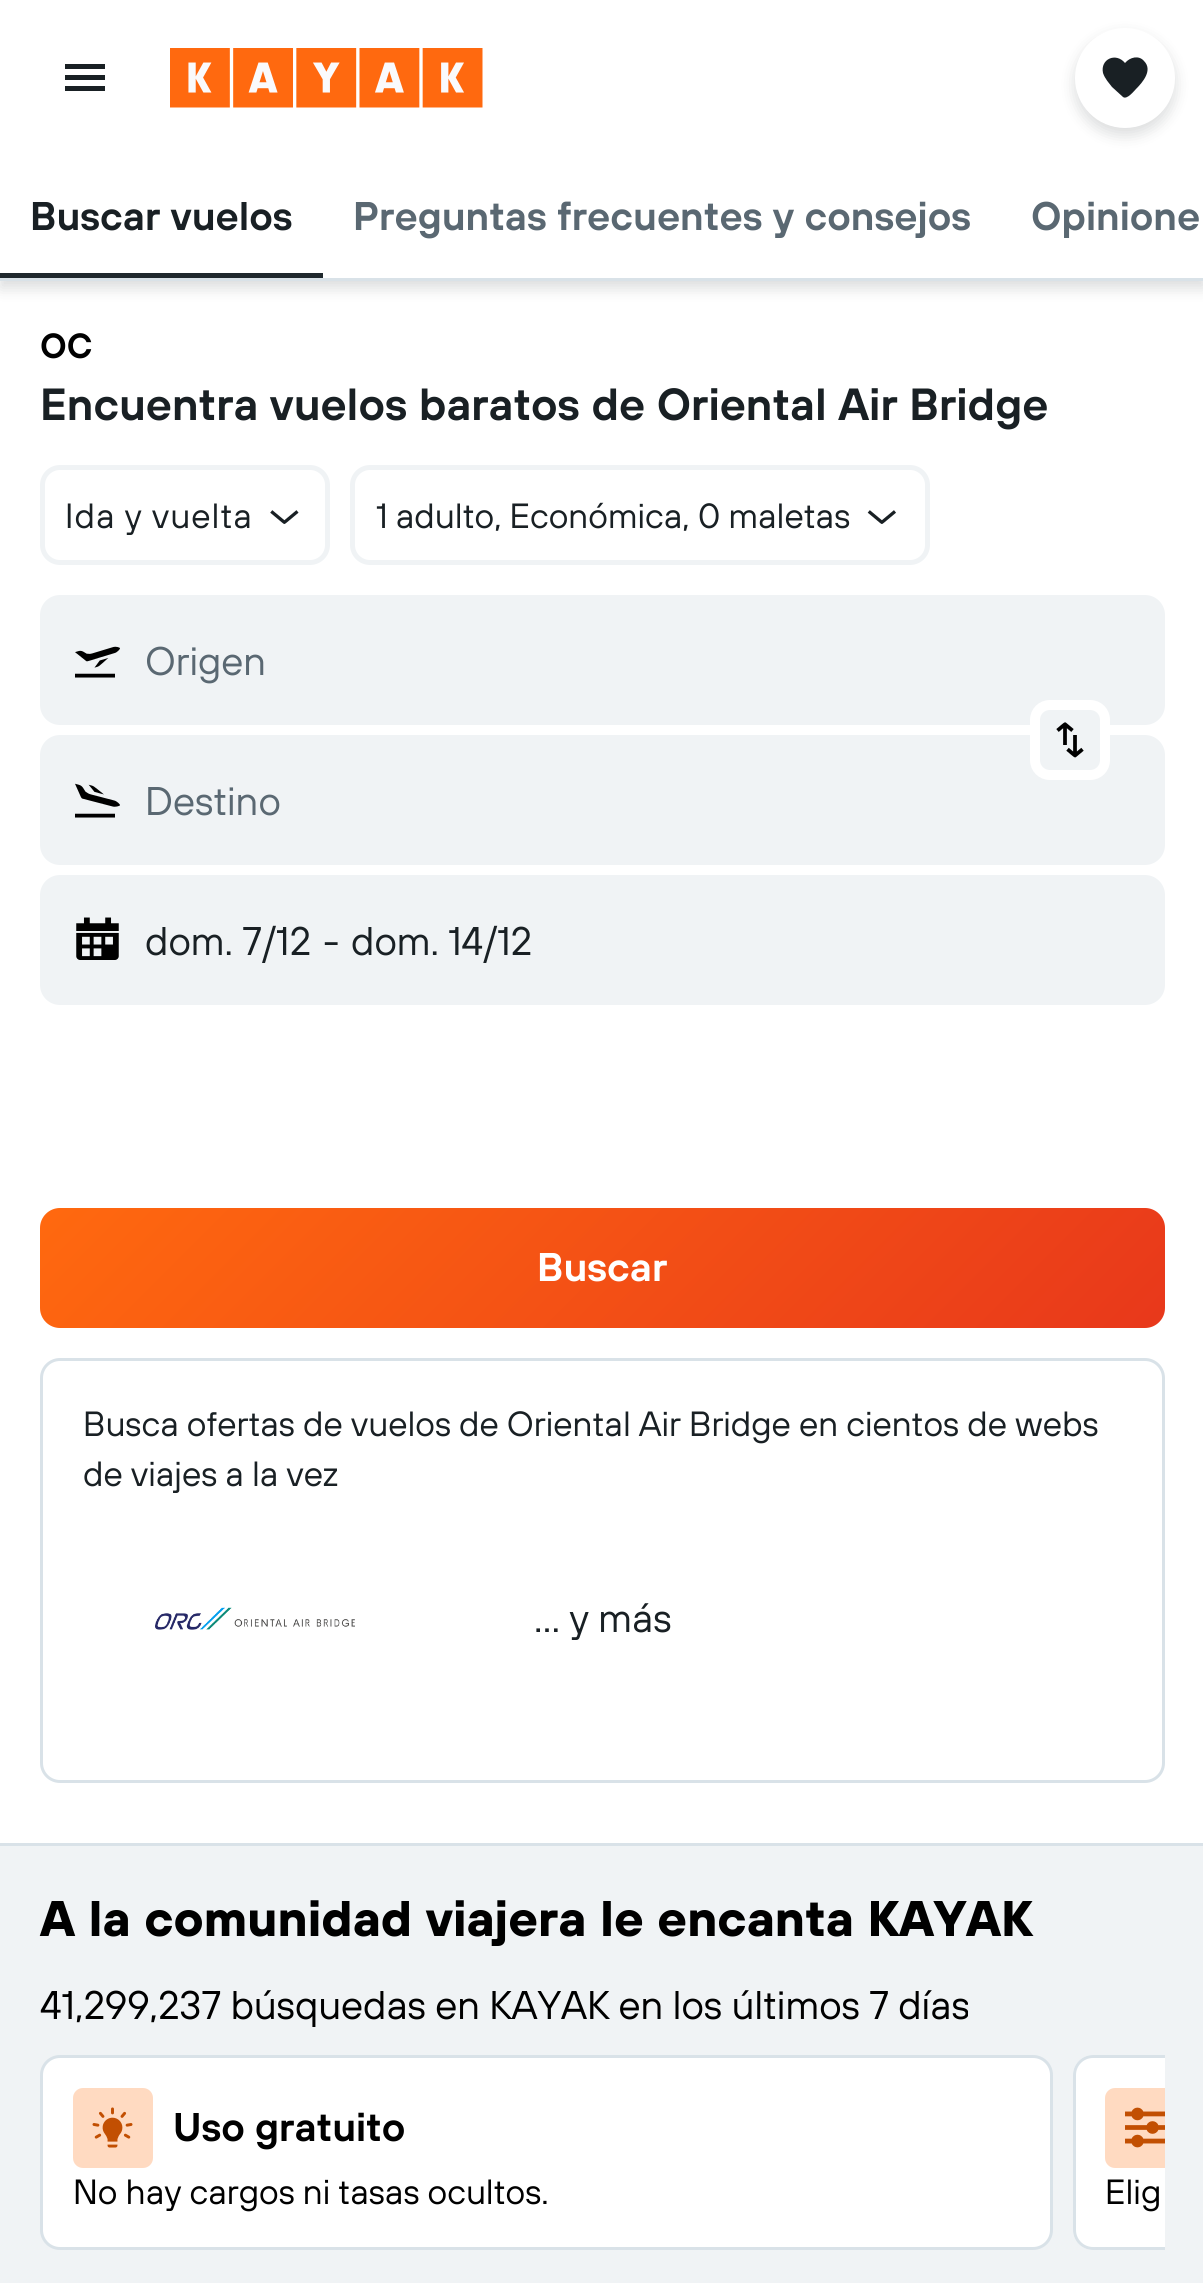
#include <cairo/cairo.h>
#include <math.h>
#include <stddef.h>


static void draw_spaced(cairo_t *cr, double x, double y, const char *s, double letter, double word) {
  cairo_move_to(cr, x, y);
  while (*s) {
    char ch[5] = {0};
    int n = 0;
    do ch[n++] = *s++; while ((*s & 0xC0) == 0x80);
    cairo_show_text(cr, ch);
    cairo_rel_move_to(cr, letter + word * (*ch == ' '), 0);
  }
}

static void rounded_rect(cairo_t *cr, double x, double y, double w, double h, double r) {
  cairo_new_sub_path(cr);
  cairo_arc(cr, x + w - r, y + h - r, r, 0, M_PI / 2);
  cairo_arc(cr, x + r, y + h - r, r, M_PI / 2, M_PI);
  cairo_arc(cr, x + r, y + r, r, M_PI, 1.5 * M_PI);
  cairo_arc(cr, x + w - r, y + r, r, 1.5 * M_PI, 2 * M_PI);
  cairo_close_path(cr);
}

static void draw_shadow(cairo_t *cr, double x, double y, double w, double h, double r, double blur, double alpha) {
  cairo_push_group_with_content(cr, CAIRO_CONTENT_ALPHA);
  cairo_set_operator(cr, CAIRO_OPERATOR_SOURCE);
  for (int i = 15; i >= -15 && fmin(w, h) + blur * i / 3 > 0; i -= 2) {
    double e = blur * i / 6;
    cairo_set_source_rgba(cr, 0, 0, 0, alpha * erfc((i - 1) / 8.5) / 2);
    rounded_rect(cr, x - e, y - e, w + 2 * e, h + 2 * e, fmax(0, fmin(r + e + blur * .6, fmin(w, h) / 2 + e)));
    cairo_fill(cr);
  }
  cairo_pattern_t *soft = cairo_pop_group(cr);
  cairo_mask(cr, soft);
  cairo_pattern_destroy(soft);
}

static void draw_image(cairo_t *cr, const char *path, double x, double y, double w, double h) {
  cairo_surface_t *image = cairo_image_surface_create_from_png(path);
  cairo_save(cr);
  cairo_set_source_surface(cr, image, x, y);
  cairo_rectangle(cr, x, y, w, h);
  cairo_fill(cr);
  cairo_restore(cr);
  cairo_surface_destroy(image);
}

static void draw(cairo_t *cr) {
  cairo_pattern_t *gradient;
  cairo_set_source_rgb(cr, 1, 1, 1);
  cairo_paint(cr);
  cairo_set_source_rgb(cr, 25 / 255.0, 32 / 255.0, 36 / 255.0);
  cairo_new_path(cr);
  cairo_move_to(cr, 65, 91);
  cairo_line_to(cr, 105, 91);
  cairo_line_to(cr, 105, 86);
  cairo_line_to(cr, 65, 86);
  cairo_close_path(cr);
  cairo_move_to(cr, 65, 80);
  cairo_line_to(cr, 105, 80);
  cairo_line_to(cr, 105, 75);
  cairo_line_to(cr, 65, 75);
  cairo_close_path(cr);
  cairo_move_to(cr, 65, 64);
  cairo_line_to(cr, 65, 69);
  cairo_line_to(cr, 105, 69);
  cairo_line_to(cr, 105, 64);
  cairo_close_path(cr);
  cairo_fill(cr);
  draw_image(cr, "images/1.png", 170, 48, 313, 60);
  cairo_save(cr);
  cairo_rectangle(cr, 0, 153, 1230, 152);
  cairo_clip(cr);
  cairo_set_source_rgb(cr, 25 / 255.0, 32 / 255.0, 36 / 255.0);
  draw_shadow(cr, 0, 160, 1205, 128, 0, 7.5, 0.16);
  cairo_restore(cr);
  cairo_set_source_rgb(cr, 1, 1, 1);
  cairo_rectangle(cr, 0, 153, 1203, 125);
  cairo_fill(cr);
  cairo_set_source_rgb(cr, 25 / 255.0, 32 / 255.0, 36 / 255.0);
  draw_shadow(cr, 1075, 35, 100, 100, 50, 7.5, 0.16);
  cairo_set_source_rgb(cr, 1, 1, 1);
  cairo_arc(cr, 1125, 78, 50, 0, 2 * M_PI);
  cairo_fill(cr);
  cairo_set_source_rgb(cr, 25 / 255.0, 32 / 255.0, 36 / 255.0);
  cairo_new_path(cr);
  cairo_move_to(cr, 1144, 61);
  cairo_curve_to(cr, 1139, 55, 1130, 57, 1125, 63);
  cairo_curve_to(cr, 1116, 52, 1100, 59, 1103, 73);
  cairo_curve_to(cr, 1105, 79, 1109, 83, 1112, 87);
  cairo_line_to(cr, 1123, 97);
  cairo_curve_to(cr, 1127, 100, 1134, 91, 1136, 89);
  cairo_curve_to(cr, 1143, 82, 1153, 70, 1144, 61);
  cairo_close_path(cr);
  cairo_fill(cr);
  cairo_set_source_rgb(cr, 217 / 255.0, 226 / 255.0, 232 / 255.0);
  cairo_rectangle(cr, 0, 278, 1203, 3);
  cairo_fill(cr);
  cairo_set_source_rgb(cr, 31 / 255.0, 40 / 255.0, 45 / 255.0);
  cairo_rectangle(cr, 0, 273, 323, 5);
  cairo_fill(cr);
  rounded_rect(cr, 42.5, 467.5, 285, 95, 17.5);
  cairo_set_source_rgb(cr, 240 / 255.0, 243 / 255.0, 245 / 255.0);
  cairo_set_line_width(cr, 5);
  cairo_stroke(cr);
  draw_image(cr, "images/2.png", 270, 510, 29, 14);
  rounded_rect(cr, 352.5, 467.5, 575, 95, 17.5);
  cairo_stroke(cr);
  draw_image(cr, "images/3.png", 867, 510, 29, 14);
  rounded_rect(cr, 41.5, 596.5, 1122, 127, 18.5);
  cairo_fill_preserve(cr);
  cairo_set_line_width(cr, 3);
  cairo_stroke(cr);
  draw_image(cr, "images/4.png", 75, 646, 45, 32);
  rounded_rect(cr, 41.5, 736.5, 1122, 127, 18.5);
  cairo_fill_preserve(cr);
  cairo_stroke(cr);
  cairo_new_path(cr);
  cairo_move_to(cr, 1110, 720);
  cairo_line_to(cr, 1110, 760);
  cairo_curve_to(cr, 1110, 771, 1101, 780, 1090, 780);
  cairo_line_to(cr, 1050, 780);
  cairo_curve_to(cr, 1039, 780, 1030, 771, 1030, 760);
  cairo_line_to(cr, 1030, 720);
  cairo_curve_to(cr, 1030, 709, 1039, 700, 1050, 700);
  cairo_line_to(cr, 1090, 700);
  cairo_curve_to(cr, 1101, 700, 1110, 709, 1110, 720);
  cairo_close_path(cr);
  cairo_fill(cr);
  cairo_new_path(cr);
  cairo_move_to(cr, 1105, 720);
  cairo_line_to(cr, 1105, 760);
  cairo_curve_to(cr, 1105, 768.5, 1098.5, 775, 1090, 775);
  cairo_line_to(cr, 1050, 775);
  cairo_curve_to(cr, 1041.5, 775, 1035, 768.5, 1035, 760);
  cairo_line_to(cr, 1035, 720);
  cairo_curve_to(cr, 1035, 711.5, 1041.5, 705, 1050, 705);
  cairo_line_to(cr, 1090, 705);
  cairo_curve_to(cr, 1098.5, 705, 1105, 711.5, 1105, 720);
  cairo_close_path(cr);
  cairo_set_source_rgb(cr, 1, 1, 1);
  cairo_set_line_width(cr, 10);
  cairo_stroke(cr);
  draw_image(cr, "images/5.png", 1056, 722, 28, 36);
  draw_image(cr, "images/6.png", 75, 783, 45, 35);
  cairo_set_source_rgb(cr, 240 / 255.0, 243 / 255.0, 245 / 255.0);
  rounded_rect(cr, 41.5, 876.5, 1122, 127, 18.5);
  cairo_fill_preserve(cr);
  cairo_set_line_width(cr, 3);
  cairo_stroke(cr);
  draw_image(cr, "images/7.png", 76, 917, 43, 43);
  gradient = cairo_pattern_create_linear(291, 956, 914, 1579);
  cairo_pattern_add_color_stop_rgba(gradient, 0, 1, 105 / 255.0, 15 / 255.0, 1);
  cairo_pattern_add_color_stop_rgba(gradient, 1, 232 / 255.0, 56 / 255.0, 27 / 255.0, 1);
  cairo_set_source(cr, gradient);
  cairo_pattern_destroy(gradient);
  rounded_rect(cr, 40, 1208, 1125, 120, 20);
  cairo_fill(cr);
  rounded_rect(cr, 41.5, 1359.5, 1122, 422, 18.5);
  cairo_set_source_rgb(cr, 217 / 255.0, 226 / 255.0, 232 / 255.0);
  cairo_stroke(cr);
  draw_image(cr, "images/8.png", 155, 1607, 200, 23);
  cairo_set_source_rgb(cr, 240 / 255.0, 243 / 255.0, 245 / 255.0);
  cairo_rectangle(cr, 0, 1846, 1203, 437);
  cairo_fill(cr);
  cairo_set_source_rgb(cr, 217 / 255.0, 226 / 255.0, 232 / 255.0);
  cairo_rectangle(cr, 0, 1843, 1203, 3);
  cairo_fill(cr);
  cairo_set_source_rgb(cr, 1, 1, 1);
  rounded_rect(cr, 41.5, 2056.5, 1010, 192, 18.5);
  cairo_fill_preserve(cr);
  cairo_set_source_rgb(cr, 217 / 255.0, 226 / 255.0, 232 / 255.0);
  cairo_stroke(cr);
  cairo_set_source_rgb(cr, 1, 218 / 255.0, 193 / 255.0);
  rounded_rect(cr, 73, 2088, 80, 80, 10);
  cairo_fill(cr);
  draw_image(cr, "images/9.png", 92, 2107, 41, 41);
  cairo_set_source_rgb(cr, 1, 1, 1);
  cairo_new_path(cr);
  cairo_move_to(cr, 1093, 2055);
  cairo_line_to(cr, 1165, 2055);
  cairo_line_to(cr, 1165, 2250);
  cairo_line_to(cr, 1093, 2250);
  cairo_curve_to(cr, 1082, 2250, 1073, 2241, 1073, 2230);
  cairo_line_to(cr, 1073, 2075);
  cairo_curve_to(cr, 1073, 2064, 1082, 2055, 1093, 2055);
  cairo_close_path(cr);
  cairo_fill(cr);
  cairo_save(cr);
  cairo_rectangle(cr, 40, 2055, 1125, 195);
  cairo_clip(cr);
  rounded_rect(cr, 1074.5, 2056.5, 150, 192, 18.5);
  cairo_set_source_rgb(cr, 217 / 255.0, 226 / 255.0, 232 / 255.0);
  cairo_stroke(cr);
  cairo_restore(cr);
  cairo_set_source_rgb(cr, 1, 218 / 255.0, 193 / 255.0);
  cairo_new_path(cr);
  cairo_move_to(cr, 1115, 2088);
  cairo_line_to(cr, 1165, 2088);
  cairo_line_to(cr, 1165, 2168);
  cairo_line_to(cr, 1115, 2168);
  cairo_curve_to(cr, 1109.5, 2168, 1105, 2163.5, 1105, 2158);
  cairo_line_to(cr, 1105, 2098);
  cairo_curve_to(cr, 1105, 2092.5, 1109.5, 2088, 1115, 2088);
  cairo_close_path(cr);
  cairo_fill(cr);
  draw_image(cr, "images/10.png", 1125, 2107, 40, 41);
  cairo_select_font_face(cr, "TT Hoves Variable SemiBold", CAIRO_FONT_SLANT_NORMAL, CAIRO_FONT_WEIGHT_NORMAL);
  cairo_set_font_size(cr, 40);
  cairo_set_source_rgb(cr, 25 / 255.0, 32 / 255.0, 36 / 255.0);
  cairo_move_to(cr, 30, 230);
  cairo_show_text(cr, "Buscar vuelos");
  cairo_set_source_rgb(cr, 90 / 255.0, 104 / 255.0, 114 / 255.0);
  cairo_move_to(cr, 353, 230);
  cairo_show_text(cr, "Preguntas frecuentes y consejos");
  cairo_move_to(cr, 1031, 230);
  cairo_show_text(cr, "Opinione");
  cairo_set_font_size(cr, 35);
  cairo_set_source_rgb(cr, 0, 0, 0);
  cairo_move_to(cr, 40, 358);
  cairo_show_text(cr, "OC");
  cairo_set_font_size(cr, 45);
  cairo_set_source_rgb(cr, 25 / 255.0, 32 / 255.0, 36 / 255.0);
  cairo_move_to(cr, 40, 420);
  cairo_show_text(cr, "Encuentra vuelos baratos de Oriental Air Bridge");
  cairo_select_font_face(cr, "TT Hoves Variable", CAIRO_FONT_SLANT_NORMAL, CAIRO_FONT_WEIGHT_NORMAL);
  cairo_set_font_size(cr, 35);
  draw_spaced(cr, 65, 528, "Ida y vuelta", 1, 0);
  cairo_move_to(cr, 376, 528);
  cairo_show_text(cr, "1 adulto, Económica, 0 maletas");
  cairo_set_font_size(cr, 40);
  cairo_set_source_rgb(cr, 90 / 255.0, 104 / 255.0, 114 / 255.0);
  cairo_move_to(cr, 145, 675);
  cairo_show_text(cr, "Origen");
  cairo_move_to(cr, 145, 815);
  cairo_show_text(cr, "Destino");
  cairo_set_source_rgb(cr, 25 / 255.0, 32 / 255.0, 36 / 255.0);
  cairo_move_to(cr, 145, 955);
  cairo_show_text(cr, "dom. 7/12");
  cairo_move_to(cr, 323, 955);
  cairo_show_text(cr, "-");
  cairo_move_to(cr, 351, 955);
  cairo_show_text(cr, "dom. 14/12");
  cairo_select_font_face(cr, "TT Hoves Variable SemiBold", CAIRO_FONT_SLANT_NORMAL, CAIRO_FONT_WEIGHT_NORMAL);
  cairo_set_source_rgb(cr, 1, 1, 1);
  cairo_move_to(cr, 537, 1281);
  cairo_show_text(cr, "Buscar");
  cairo_select_font_face(cr, "TT Hoves Variable", CAIRO_FONT_SLANT_NORMAL, CAIRO_FONT_WEIGHT_NORMAL);
  cairo_set_font_size(cr, 35);
  cairo_set_source_rgb(cr, 25 / 255.0, 32 / 255.0, 36 / 255.0);
  cairo_move_to(cr, 83, 1436);
  cairo_show_text(cr, "Busca ofertas de vuelos de Oriental Air Bridge en cientos de webs");
  cairo_move_to(cr, 83, 1486);
  cairo_show_text(cr, "de viajes a la vez");
  cairo_set_font_size(cr, 40);
  cairo_move_to(cr, 534, 1632);
  cairo_show_text(cr, "… y más");
  cairo_select_font_face(cr, "TT Hoves Variable", CAIRO_FONT_SLANT_NORMAL, CAIRO_FONT_WEIGHT_BOLD);
  cairo_set_font_size(cr, 50);
  cairo_set_source_rgb(cr, 0, 0, 0);
  cairo_move_to(cr, 40, 1936);
  cairo_show_text(cr, "A la comunidad viajera le encanta KAYAK");
  cairo_select_font_face(cr, "TT Hoves Variable", CAIRO_FONT_SLANT_NORMAL, CAIRO_FONT_WEIGHT_NORMAL);
  cairo_set_font_size(cr, 40);
  cairo_move_to(cr, 40, 2019);
  cairo_show_text(cr, "41,299,237 búsquedas en KAYAK en los últimos 7 días");
  cairo_select_font_face(cr, "TT Hoves Variable SemiBold", CAIRO_FONT_SLANT_NORMAL, CAIRO_FONT_WEIGHT_NORMAL);
  cairo_move_to(cr, 173, 2141);
  cairo_show_text(cr, "Uso gratuito");
  cairo_select_font_face(cr, "TT Hoves Variable", CAIRO_FONT_SLANT_NORMAL, CAIRO_FONT_WEIGHT_NORMAL);
  cairo_set_font_size(cr, 35);
  cairo_move_to(cr, 73, 2204);
  cairo_show_text(cr, "No hay cargos ni tasas ocultos.");
  cairo_move_to(cr, 1105, 2204);
  cairo_show_text(cr, "Elig");
}

int main(void) {
  cairo_surface_t *surface = cairo_image_surface_create(CAIRO_FORMAT_RGB24, 1203, 2283);
  cairo_t *cr = cairo_create(surface);
  cairo_font_options_t *options = cairo_font_options_create();
  cairo_font_options_set_hint_metrics(options, CAIRO_HINT_METRICS_OFF);
  cairo_font_options_set_hint_style(options, CAIRO_HINT_STYLE_NONE);
  cairo_set_font_options(cr, options);
  cairo_set_miter_limit(cr, 4);
  draw(cr);
  cairo_surface_write_to_png(surface, "out.png");
  cairo_font_options_destroy(options);
  cairo_destroy(cr);
  cairo_surface_destroy(surface);
  return 0;
}
